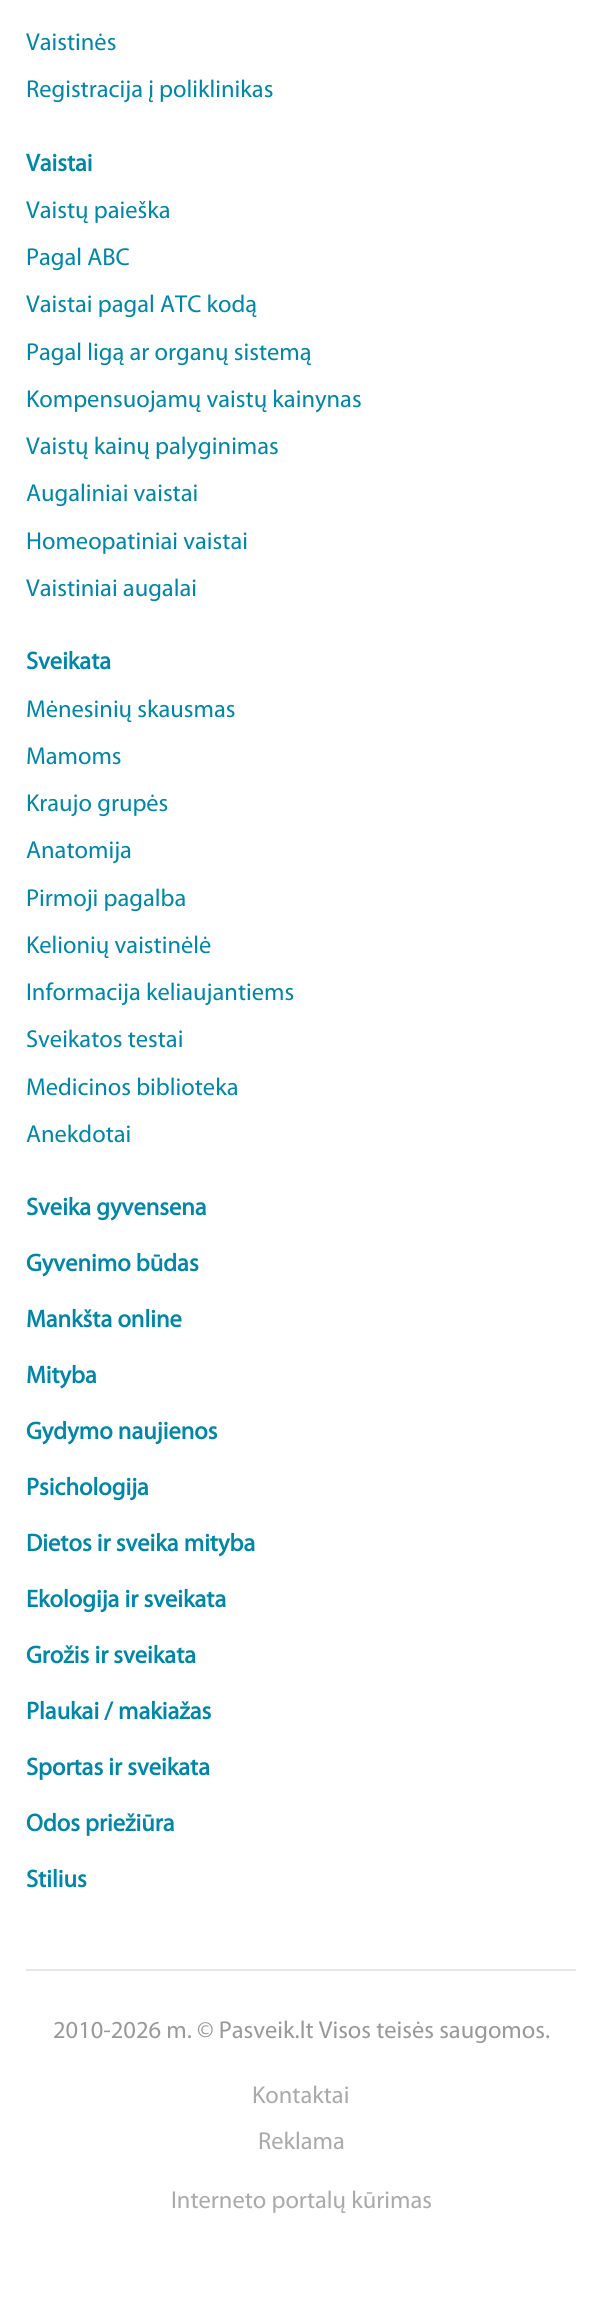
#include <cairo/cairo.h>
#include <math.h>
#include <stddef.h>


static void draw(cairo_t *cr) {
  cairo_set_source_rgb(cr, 1, 1, 1);
  cairo_paint(cr);
  cairo_set_source_rgb(cr, 230 / 255.0, 230 / 255.0, 230 / 255.0);
  cairo_rectangle(cr, 26, 1969, 550, 2);
  cairo_fill(cr);
  cairo_select_font_face(cr, "Myriad", CAIRO_FONT_SLANT_NORMAL, CAIRO_FONT_WEIGHT_NORMAL);
  cairo_set_font_size(cr, 24.5);
  cairo_set_source_rgb(cr, 0, 134 / 255.0, 168 / 255.0);
  cairo_move_to(cr, 26, 50);
  cairo_show_text(cr, "Vaistinės");
  cairo_move_to(cr, 26, 97);
  cairo_show_text(cr, "Registracija į poliklinikas");
  cairo_select_font_face(cr, "Myriad", CAIRO_FONT_SLANT_NORMAL, CAIRO_FONT_WEIGHT_BOLD);
  cairo_move_to(cr, 26, 171);
  cairo_show_text(cr, "Vaistai");
  cairo_select_font_face(cr, "Myriad", CAIRO_FONT_SLANT_NORMAL, CAIRO_FONT_WEIGHT_NORMAL);
  cairo_move_to(cr, 26, 218);
  cairo_show_text(cr, "Vaistų paieška");
  cairo_move_to(cr, 26, 265);
  cairo_show_text(cr, "Pagal ABC");
  cairo_move_to(cr, 26, 312);
  cairo_show_text(cr, "Vaistai pagal ATC kodą");
  cairo_move_to(cr, 26, 360);
  cairo_show_text(cr, "Pagal ligą ar organų sistemą");
  cairo_move_to(cr, 26, 407);
  cairo_show_text(cr, "Kompensuojamų vaistų kainynas");
  cairo_move_to(cr, 26, 454);
  cairo_show_text(cr, "Vaistų kainų palyginimas");
  cairo_move_to(cr, 26, 501);
  cairo_show_text(cr, "Augaliniai vaistai");
  cairo_move_to(cr, 26, 549);
  cairo_show_text(cr, "Homeopatiniai vaistai");
  cairo_move_to(cr, 26, 596);
  cairo_show_text(cr, "Vaistiniai augalai");
  cairo_select_font_face(cr, "Myriad", CAIRO_FONT_SLANT_NORMAL, CAIRO_FONT_WEIGHT_BOLD);
  cairo_move_to(cr, 26, 669);
  cairo_show_text(cr, "Sveikata");
  cairo_select_font_face(cr, "Myriad", CAIRO_FONT_SLANT_NORMAL, CAIRO_FONT_WEIGHT_NORMAL);
  cairo_move_to(cr, 26, 717);
  cairo_show_text(cr, "Mėnesinių skausmas");
  cairo_move_to(cr, 26, 764);
  cairo_show_text(cr, "Mamoms");
  cairo_move_to(cr, 26, 811);
  cairo_show_text(cr, "Kraujo grupės");
  cairo_move_to(cr, 26, 858);
  cairo_show_text(cr, "Anatomija");
  cairo_move_to(cr, 26, 906);
  cairo_show_text(cr, "Pirmoji pagalba");
  cairo_move_to(cr, 26, 953);
  cairo_show_text(cr, "Kelionių vaistinėlė");
  cairo_move_to(cr, 26, 1000);
  cairo_show_text(cr, "Informacija keliaujantiems");
  cairo_move_to(cr, 26, 1047);
  cairo_show_text(cr, "Sveikatos testai");
  cairo_move_to(cr, 26, 1095);
  cairo_show_text(cr, "Medicinos biblioteka");
  cairo_move_to(cr, 26, 1142);
  cairo_show_text(cr, "Anekdotai");
  cairo_select_font_face(cr, "Myriad", CAIRO_FONT_SLANT_NORMAL, CAIRO_FONT_WEIGHT_BOLD);
  cairo_move_to(cr, 26, 1215);
  cairo_show_text(cr, "Sveika gyvensena");
  cairo_move_to(cr, 26, 1271);
  cairo_show_text(cr, "Gyvenimo būdas");
  cairo_move_to(cr, 26, 1327);
  cairo_show_text(cr, "Mankšta online");
  cairo_move_to(cr, 26, 1383);
  cairo_show_text(cr, "Mityba");
  cairo_move_to(cr, 26, 1439);
  cairo_show_text(cr, "Gydymo naujienos");
  cairo_move_to(cr, 26, 1495);
  cairo_show_text(cr, "Psichologija");
  cairo_move_to(cr, 26, 1551);
  cairo_show_text(cr, "Dietos ir sveika mityba");
  cairo_move_to(cr, 26, 1607);
  cairo_show_text(cr, "Ekologija ir sveikata");
  cairo_move_to(cr, 26, 1663);
  cairo_show_text(cr, "Grožis ir sveikata");
  cairo_move_to(cr, 26, 1719);
  cairo_show_text(cr, "Plaukai / makiažas");
  cairo_move_to(cr, 26, 1775);
  cairo_show_text(cr, "Sportas ir sveikata");
  cairo_move_to(cr, 26, 1831);
  cairo_show_text(cr, "Odos priežiūra");
  cairo_move_to(cr, 26, 1887);
  cairo_show_text(cr, "Stilius");
  cairo_select_font_face(cr, "Myriad", CAIRO_FONT_SLANT_NORMAL, CAIRO_FONT_WEIGHT_NORMAL);
  cairo_set_source_rgb(cr, 153 / 255.0, 153 / 255.0, 153 / 255.0);
  cairo_move_to(cr, 53, 2038);
  cairo_show_text(cr, "2010-2026 m. © Pasveik.lt Visos teisės saugomos.");
  cairo_set_source_rgb(cr, 170 / 255.0, 170 / 255.0, 170 / 255.0);
  cairo_move_to(cr, 252, 2103);
  cairo_show_text(cr, "Kontaktai");
  cairo_move_to(cr, 258, 2149);
  cairo_show_text(cr, "Reklama");
  cairo_move_to(cr, 171, 2208);
  cairo_show_text(cr, "Interneto portalų kūrimas");
}

int main(void) {
  cairo_surface_t *surface = cairo_image_surface_create(CAIRO_FORMAT_RGB24, 602, 2299);
  cairo_t *cr = cairo_create(surface);
  cairo_font_options_t *options = cairo_font_options_create();
  cairo_font_options_set_hint_metrics(options, CAIRO_HINT_METRICS_OFF);
  cairo_font_options_set_hint_style(options, CAIRO_HINT_STYLE_NONE);
  cairo_set_font_options(cr, options);
  cairo_set_miter_limit(cr, 4);
  draw(cr);
  cairo_surface_write_to_png(surface, "out.png");
  cairo_font_options_destroy(options);
  cairo_destroy(cr);
  cairo_surface_destroy(surface);
  return 0;
}
